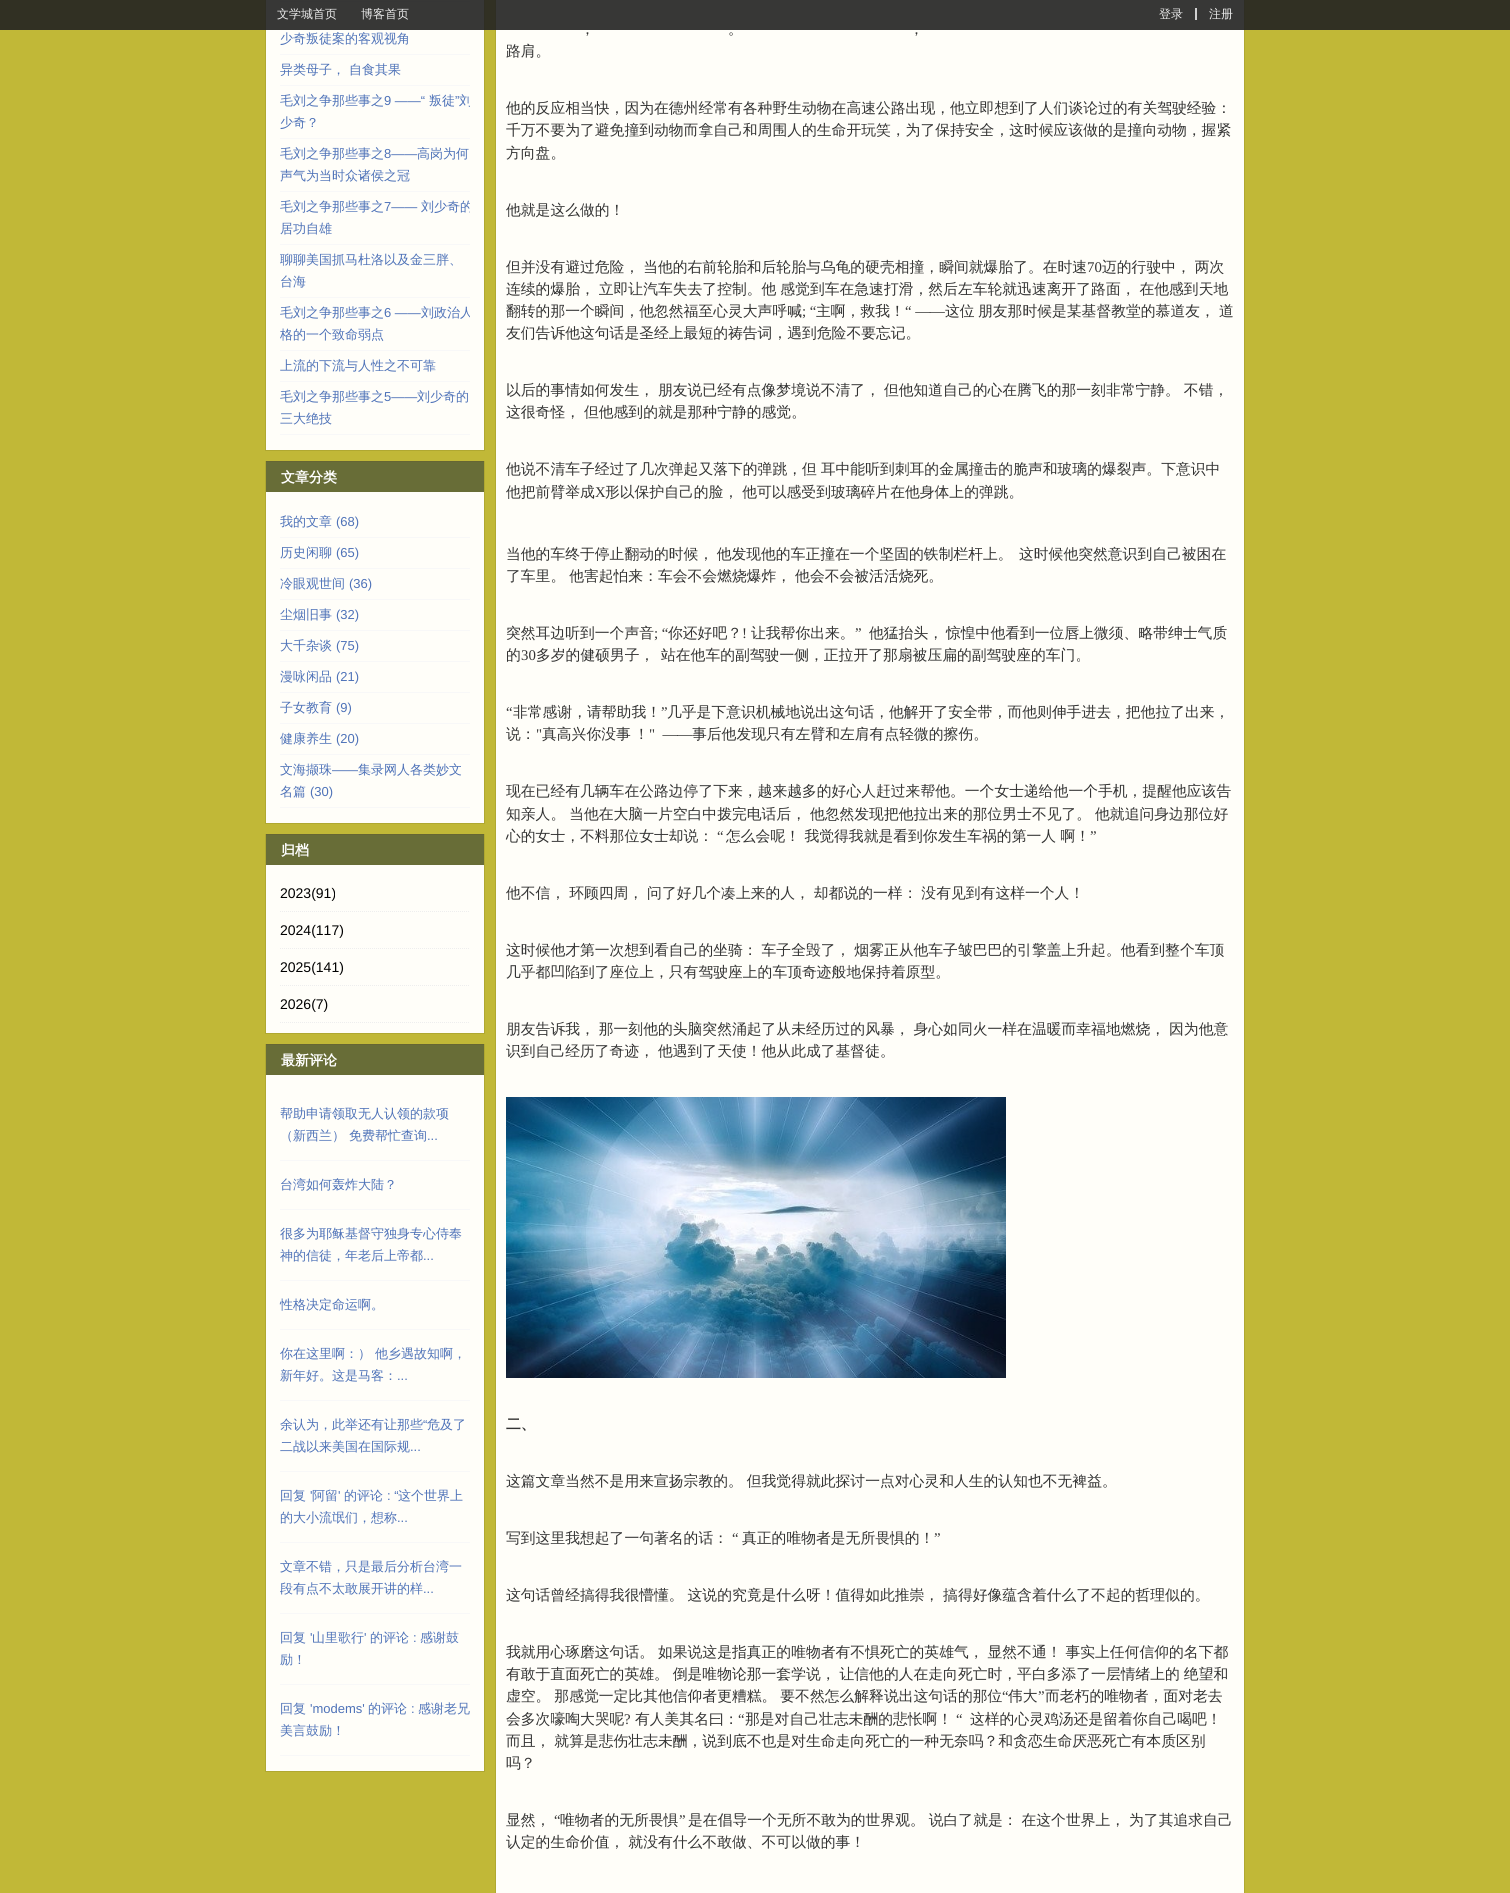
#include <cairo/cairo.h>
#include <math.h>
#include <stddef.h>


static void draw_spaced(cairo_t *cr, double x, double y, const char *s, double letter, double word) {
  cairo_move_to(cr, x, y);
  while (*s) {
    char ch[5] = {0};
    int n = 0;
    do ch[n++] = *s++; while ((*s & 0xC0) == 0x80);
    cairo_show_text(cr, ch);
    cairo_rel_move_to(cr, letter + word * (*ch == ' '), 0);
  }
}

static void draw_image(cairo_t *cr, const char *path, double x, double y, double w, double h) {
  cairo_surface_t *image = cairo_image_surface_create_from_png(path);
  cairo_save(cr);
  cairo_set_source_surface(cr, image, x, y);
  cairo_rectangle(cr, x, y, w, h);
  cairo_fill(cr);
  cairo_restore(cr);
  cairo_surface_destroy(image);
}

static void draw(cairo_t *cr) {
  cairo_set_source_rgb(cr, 193 / 255.0, 184 / 255.0, 55 / 255.0);
  cairo_paint(cr);
  cairo_set_source_rgb(cr, 176 / 255.0, 168 / 255.0, 49 / 255.0);
  cairo_rectangle(cr, 484, 0, 1, 451);
  cairo_fill(cr);
  cairo_rectangle(cr, 265, 450, 220, 1);
  cairo_fill(cr);
  cairo_rectangle(cr, 265, 0, 1, 451);
  cairo_fill(cr);
  cairo_set_source_rgb(cr, 1, 254 / 255.0, 249 / 255.0);
  cairo_rectangle(cr, 266, 0, 218, 450);
  cairo_fill(cr);
  cairo_set_source_rgb(cr, 248 / 255.0, 248 / 255.0, 248 / 255.0);
  cairo_rectangle(cr, 280, 1, 190, 1);
  cairo_fill(cr);
  cairo_set_source_rgb(cr, 176 / 255.0, 168 / 255.0, 49 / 255.0);
  cairo_rectangle(cr, 1244, 0, 1, 1893);
  cairo_fill(cr);
  cairo_rectangle(cr, 495, 0, 1, 1893);
  cairo_fill(cr);
  cairo_set_source_rgb(cr, 1, 254 / 255.0, 249 / 255.0);
  cairo_rectangle(cr, 496, 0, 748, 1893);
  cairo_fill(cr);
  cairo_set_source_rgba(cr, 34 / 255.0, 34 / 255.0, 34 / 255.0, 0.9);
  cairo_rectangle(cr, 0, 0, 1510, 30);
  cairo_fill(cr);
  cairo_set_source_rgb(cr, 209 / 255.0, 209 / 255.0, 209 / 255.0);
  cairo_rectangle(cr, 1195, 8, 2, 12);
  cairo_fill(cr);
  cairo_set_source_rgb(cr, 248 / 255.0, 248 / 255.0, 248 / 255.0);
  cairo_rectangle(cr, 280, 54, 190, 1);
  cairo_fill(cr);
  cairo_rectangle(cr, 280, 85, 190, 1);
  cairo_fill(cr);
  cairo_rectangle(cr, 280, 138, 190, 1);
  cairo_fill(cr);
  cairo_rectangle(cr, 280, 191, 190, 1);
  cairo_fill(cr);
  cairo_rectangle(cr, 280, 244, 190, 1);
  cairo_fill(cr);
  cairo_rectangle(cr, 280, 297, 190, 1);
  cairo_fill(cr);
  cairo_rectangle(cr, 280, 350, 190, 1);
  cairo_fill(cr);
  cairo_rectangle(cr, 280, 381, 190, 1);
  cairo_fill(cr);
  cairo_rectangle(cr, 280, 434, 190, 1);
  cairo_fill(cr);
  cairo_set_source_rgb(cr, 102 / 255.0, 102 / 255.0, 51 / 255.0);
  cairo_rectangle(cr, 265, 461, 220, 1);
  cairo_fill(cr);
  cairo_set_source_rgb(cr, 176 / 255.0, 168 / 255.0, 49 / 255.0);
  cairo_rectangle(cr, 484, 461, 1, 363);
  cairo_fill(cr);
  cairo_rectangle(cr, 265, 823, 220, 1);
  cairo_fill(cr);
  cairo_rectangle(cr, 265, 461, 1, 363);
  cairo_fill(cr);
  cairo_set_source_rgb(cr, 104 / 255.0, 109 / 255.0, 55 / 255.0);
  cairo_rectangle(cr, 266, 462, 218, 30);
  cairo_fill(cr);
  cairo_set_source_rgb(cr, 1, 254 / 255.0, 249 / 255.0);
  cairo_rectangle(cr, 266, 492, 218, 331);
  cairo_fill(cr);
  cairo_set_source_rgb(cr, 248 / 255.0, 248 / 255.0, 248 / 255.0);
  cairo_rectangle(cr, 280, 537, 190, 1);
  cairo_fill(cr);
  cairo_rectangle(cr, 280, 568, 190, 1);
  cairo_fill(cr);
  cairo_rectangle(cr, 280, 599, 190, 1);
  cairo_fill(cr);
  cairo_rectangle(cr, 280, 630, 190, 1);
  cairo_fill(cr);
  cairo_rectangle(cr, 280, 661, 190, 1);
  cairo_fill(cr);
  cairo_rectangle(cr, 280, 692, 190, 1);
  cairo_fill(cr);
  cairo_rectangle(cr, 280, 723, 190, 1);
  cairo_fill(cr);
  cairo_rectangle(cr, 280, 754, 190, 1);
  cairo_fill(cr);
  cairo_rectangle(cr, 280, 807, 190, 1);
  cairo_fill(cr);
  cairo_set_source_rgb(cr, 102 / 255.0, 102 / 255.0, 51 / 255.0);
  cairo_rectangle(cr, 265, 834, 220, 1);
  cairo_fill(cr);
  cairo_set_source_rgb(cr, 176 / 255.0, 168 / 255.0, 49 / 255.0);
  cairo_rectangle(cr, 484, 834, 1, 200);
  cairo_fill(cr);
  cairo_rectangle(cr, 265, 1033, 220, 1);
  cairo_fill(cr);
  cairo_rectangle(cr, 265, 834, 1, 200);
  cairo_fill(cr);
  cairo_set_source_rgb(cr, 104 / 255.0, 109 / 255.0, 55 / 255.0);
  cairo_rectangle(cr, 266, 835, 218, 30);
  cairo_fill(cr);
  cairo_set_source_rgb(cr, 1, 254 / 255.0, 249 / 255.0);
  cairo_rectangle(cr, 266, 865, 218, 168);
  cairo_fill(cr);
  cairo_new_path(cr);
  cairo_move_to(cr, 280, 911.5);
  cairo_line_to(cr, 470, 911.5);
  cairo_set_source_rgb(cr, 238 / 255.0, 238 / 255.0, 238 / 255.0);
  cairo_set_line_width(cr, 1);
  cairo_set_dash(cr, (double[]){1, 1}, 2, 0);
  cairo_stroke(cr);
  cairo_new_path(cr);
  cairo_move_to(cr, 280, 948.5);
  cairo_line_to(cr, 470, 948.5);
  cairo_stroke(cr);
  cairo_new_path(cr);
  cairo_move_to(cr, 280, 985.5);
  cairo_line_to(cr, 470, 985.5);
  cairo_stroke(cr);
  cairo_new_path(cr);
  cairo_move_to(cr, 280, 1022.5);
  cairo_line_to(cr, 470, 1022.5);
  cairo_stroke(cr);
  cairo_set_source_rgb(cr, 102 / 255.0, 102 / 255.0, 51 / 255.0);
  cairo_rectangle(cr, 265, 1044, 220, 1);
  cairo_fill(cr);
  cairo_set_source_rgb(cr, 176 / 255.0, 168 / 255.0, 49 / 255.0);
  cairo_rectangle(cr, 484, 1044, 1, 728);
  cairo_fill(cr);
  cairo_rectangle(cr, 265, 1771, 220, 1);
  cairo_fill(cr);
  cairo_rectangle(cr, 265, 1044, 1, 728);
  cairo_fill(cr);
  cairo_set_source_rgb(cr, 104 / 255.0, 109 / 255.0, 55 / 255.0);
  cairo_rectangle(cr, 266, 1045, 218, 30);
  cairo_fill(cr);
  cairo_set_source_rgb(cr, 1, 254 / 255.0, 249 / 255.0);
  cairo_rectangle(cr, 266, 1075, 218, 696);
  cairo_fill(cr);
  cairo_set_source_rgb(cr, 248 / 255.0, 248 / 255.0, 248 / 255.0);
  cairo_rectangle(cr, 280, 1160, 190, 1);
  cairo_fill(cr);
  cairo_rectangle(cr, 280, 1209, 190, 1);
  cairo_fill(cr);
  cairo_rectangle(cr, 280, 1280, 190, 1);
  cairo_fill(cr);
  cairo_rectangle(cr, 280, 1329, 190, 1);
  cairo_fill(cr);
  cairo_rectangle(cr, 280, 1400, 190, 1);
  cairo_fill(cr);
  cairo_rectangle(cr, 280, 1471, 190, 1);
  cairo_fill(cr);
  cairo_rectangle(cr, 280, 1542, 190, 1);
  cairo_fill(cr);
  cairo_rectangle(cr, 280, 1613, 190, 1);
  cairo_fill(cr);
  cairo_rectangle(cr, 280, 1684, 190, 1);
  cairo_fill(cr);
  cairo_rectangle(cr, 280, 1755, 190, 1);
  cairo_fill(cr);
  draw_image(cr, "images/1.png", 506, 1097, 500, 281);
  cairo_select_font_face(cr, "WenQuanYi Zen Hei Medium", CAIRO_FONT_SLANT_NORMAL, CAIRO_FONT_WEIGHT_NORMAL);
  cairo_set_font_size(cr, 12);
  cairo_set_source_rgb(cr, 235 / 255.0, 235 / 255.0, 235 / 255.0);
  cairo_move_to(cr, 277, 18);
  cairo_show_text(cr, "文学城首页");
  cairo_move_to(cr, 361, 18);
  cairo_show_text(cr, "博客首页");
  cairo_move_to(cr, 1159, 18);
  cairo_show_text(cr, "登录");
  cairo_move_to(cr, 1209, 18);
  cairo_show_text(cr, "注册");
  cairo_set_font_size(cr, 13);
  cairo_set_source_rgb(cr, 78 / 255.0, 114 / 255.0, 184 / 255.0);
  cairo_move_to(cr, 280, 43);
  cairo_show_text(cr, "少奇叛徒案的客观视角");
  cairo_move_to(cr, 280, 74);
  cairo_show_text(cr, "异类母子， 自食其果");
  cairo_move_to(cr, 280, 105);
  cairo_show_text(cr, "毛刘之争那些事之");
  cairo_select_font_face(cr, "Liberation Sans", CAIRO_FONT_SLANT_NORMAL, CAIRO_FONT_WEIGHT_NORMAL);
  cairo_move_to(cr, 384, 105);
  cairo_show_text(cr, "9 ——“");
  cairo_select_font_face(cr, "WenQuanYi Zen Hei Medium", CAIRO_FONT_SLANT_NORMAL, CAIRO_FONT_WEIGHT_NORMAL);
  cairo_move_to(cr, 429, 105);
  cairo_show_text(cr, "叛徒");
  cairo_select_font_face(cr, "Liberation Sans", CAIRO_FONT_SLANT_NORMAL, CAIRO_FONT_WEIGHT_NORMAL);
  cairo_move_to(cr, 455, 105);
  cairo_show_text(cr, "”");
  cairo_save(cr);
  cairo_rectangle(cr, 280, 90, 190, 44);
  cairo_clip(cr);
  cairo_select_font_face(cr, "WenQuanYi Zen Hei Medium", CAIRO_FONT_SLANT_NORMAL, CAIRO_FONT_WEIGHT_NORMAL);
  cairo_move_to(cr, 459, 105);
  cairo_show_text(cr, "刘");
  cairo_restore(cr);
  cairo_select_font_face(cr, "WenQuanYi Zen Hei Medium", CAIRO_FONT_SLANT_NORMAL, CAIRO_FONT_WEIGHT_NORMAL);
  cairo_move_to(cr, 280, 127);
  cairo_show_text(cr, "少奇？");
  cairo_move_to(cr, 280, 158);
  cairo_show_text(cr, "毛刘之争那些事之");
  cairo_select_font_face(cr, "Liberation Sans", CAIRO_FONT_SLANT_NORMAL, CAIRO_FONT_WEIGHT_NORMAL);
  cairo_move_to(cr, 384, 158);
  cairo_show_text(cr, "8——");
  cairo_select_font_face(cr, "WenQuanYi Zen Hei Medium", CAIRO_FONT_SLANT_NORMAL, CAIRO_FONT_WEIGHT_NORMAL);
  cairo_move_to(cr, 417, 158);
  cairo_show_text(cr, "高岗为何");
  cairo_move_to(cr, 280, 180);
  cairo_show_text(cr, "声气为当时众诸侯之冠");
  cairo_move_to(cr, 280, 211);
  cairo_show_text(cr, "毛刘之争那些事之");
  cairo_select_font_face(cr, "Liberation Sans", CAIRO_FONT_SLANT_NORMAL, CAIRO_FONT_WEIGHT_NORMAL);
  cairo_move_to(cr, 384, 211);
  cairo_show_text(cr, "7——");
  cairo_save(cr);
  cairo_rectangle(cr, 280, 196, 190, 44);
  cairo_clip(cr);
  cairo_select_font_face(cr, "WenQuanYi Zen Hei Medium", CAIRO_FONT_SLANT_NORMAL, CAIRO_FONT_WEIGHT_NORMAL);
  cairo_move_to(cr, 421, 211);
  cairo_show_text(cr, "刘少奇的");
  cairo_restore(cr);
  cairo_select_font_face(cr, "WenQuanYi Zen Hei Medium", CAIRO_FONT_SLANT_NORMAL, CAIRO_FONT_WEIGHT_NORMAL);
  cairo_move_to(cr, 280, 233);
  cairo_show_text(cr, "居功自雄");
  cairo_move_to(cr, 280, 264);
  cairo_show_text(cr, "聊聊美国抓马杜洛以及金三胖、");
  cairo_move_to(cr, 280, 286);
  cairo_show_text(cr, "台海");
  cairo_move_to(cr, 280, 317);
  cairo_show_text(cr, "毛刘之争那些事之");
  cairo_select_font_face(cr, "Liberation Sans", CAIRO_FONT_SLANT_NORMAL, CAIRO_FONT_WEIGHT_NORMAL);
  cairo_move_to(cr, 384, 317);
  cairo_show_text(cr, "6 ——");
  cairo_save(cr);
  cairo_rectangle(cr, 280, 302, 190, 44);
  cairo_clip(cr);
  cairo_select_font_face(cr, "WenQuanYi Zen Hei Medium", CAIRO_FONT_SLANT_NORMAL, CAIRO_FONT_WEIGHT_NORMAL);
  cairo_move_to(cr, 421, 317);
  cairo_show_text(cr, "刘政治人");
  cairo_restore(cr);
  cairo_select_font_face(cr, "WenQuanYi Zen Hei Medium", CAIRO_FONT_SLANT_NORMAL, CAIRO_FONT_WEIGHT_NORMAL);
  cairo_move_to(cr, 280, 339);
  cairo_show_text(cr, "格的一个致命弱点");
  cairo_move_to(cr, 280, 370);
  cairo_show_text(cr, "上流的下流与人性之不可靠");
  cairo_move_to(cr, 280, 401);
  cairo_show_text(cr, "毛刘之争那些事之");
  cairo_select_font_face(cr, "Liberation Sans", CAIRO_FONT_SLANT_NORMAL, CAIRO_FONT_WEIGHT_NORMAL);
  cairo_move_to(cr, 384, 401);
  cairo_show_text(cr, "5——");
  cairo_select_font_face(cr, "WenQuanYi Zen Hei Medium", CAIRO_FONT_SLANT_NORMAL, CAIRO_FONT_WEIGHT_NORMAL);
  cairo_move_to(cr, 417, 401);
  cairo_show_text(cr, "刘少奇的");
  cairo_move_to(cr, 280, 423);
  cairo_show_text(cr, "三大绝技");
  cairo_select_font_face(cr, "WenQuanYi Zen Hei", CAIRO_FONT_SLANT_NORMAL, CAIRO_FONT_WEIGHT_BOLD);
  cairo_set_font_size(cr, 14);
  cairo_set_source_rgb(cr, 1, 1, 1);
  cairo_move_to(cr, 281, 482);
  cairo_show_text(cr, "文章分类");
  cairo_select_font_face(cr, "WenQuanYi Zen Hei Medium", CAIRO_FONT_SLANT_NORMAL, CAIRO_FONT_WEIGHT_NORMAL);
  cairo_set_font_size(cr, 13);
  cairo_set_source_rgb(cr, 78 / 255.0, 114 / 255.0, 184 / 255.0);
  cairo_move_to(cr, 280, 526);
  cairo_show_text(cr, "我的文章");
  cairo_select_font_face(cr, "Liberation Sans", CAIRO_FONT_SLANT_NORMAL, CAIRO_FONT_WEIGHT_NORMAL);
  cairo_move_to(cr, 336, 526);
  cairo_show_text(cr, "(68)");
  cairo_select_font_face(cr, "WenQuanYi Zen Hei Medium", CAIRO_FONT_SLANT_NORMAL, CAIRO_FONT_WEIGHT_NORMAL);
  cairo_move_to(cr, 280, 557);
  cairo_show_text(cr, "历史闲聊");
  cairo_select_font_face(cr, "Liberation Sans", CAIRO_FONT_SLANT_NORMAL, CAIRO_FONT_WEIGHT_NORMAL);
  cairo_move_to(cr, 336, 557);
  cairo_show_text(cr, "(65)");
  cairo_select_font_face(cr, "WenQuanYi Zen Hei Medium", CAIRO_FONT_SLANT_NORMAL, CAIRO_FONT_WEIGHT_NORMAL);
  cairo_move_to(cr, 280, 588);
  cairo_show_text(cr, "冷眼观世间");
  cairo_select_font_face(cr, "Liberation Sans", CAIRO_FONT_SLANT_NORMAL, CAIRO_FONT_WEIGHT_NORMAL);
  cairo_move_to(cr, 349, 588);
  cairo_show_text(cr, "(36)");
  cairo_select_font_face(cr, "WenQuanYi Zen Hei Medium", CAIRO_FONT_SLANT_NORMAL, CAIRO_FONT_WEIGHT_NORMAL);
  cairo_move_to(cr, 280, 619);
  cairo_show_text(cr, "尘烟旧事");
  cairo_select_font_face(cr, "Liberation Sans", CAIRO_FONT_SLANT_NORMAL, CAIRO_FONT_WEIGHT_NORMAL);
  cairo_move_to(cr, 336, 619);
  cairo_show_text(cr, "(32)");
  cairo_select_font_face(cr, "WenQuanYi Zen Hei Medium", CAIRO_FONT_SLANT_NORMAL, CAIRO_FONT_WEIGHT_NORMAL);
  cairo_move_to(cr, 280, 650);
  cairo_show_text(cr, "大千杂谈");
  cairo_select_font_face(cr, "Liberation Sans", CAIRO_FONT_SLANT_NORMAL, CAIRO_FONT_WEIGHT_NORMAL);
  cairo_move_to(cr, 336, 650);
  cairo_show_text(cr, "(75)");
  cairo_select_font_face(cr, "WenQuanYi Zen Hei Medium", CAIRO_FONT_SLANT_NORMAL, CAIRO_FONT_WEIGHT_NORMAL);
  cairo_move_to(cr, 280, 681);
  cairo_show_text(cr, "漫咏闲品");
  cairo_select_font_face(cr, "Liberation Sans", CAIRO_FONT_SLANT_NORMAL, CAIRO_FONT_WEIGHT_NORMAL);
  cairo_move_to(cr, 336, 681);
  cairo_show_text(cr, "(21)");
  cairo_select_font_face(cr, "WenQuanYi Zen Hei Medium", CAIRO_FONT_SLANT_NORMAL, CAIRO_FONT_WEIGHT_NORMAL);
  cairo_move_to(cr, 280, 712);
  cairo_show_text(cr, "子女教育");
  cairo_select_font_face(cr, "Liberation Sans", CAIRO_FONT_SLANT_NORMAL, CAIRO_FONT_WEIGHT_NORMAL);
  cairo_move_to(cr, 336, 712);
  cairo_show_text(cr, "(9)");
  cairo_select_font_face(cr, "WenQuanYi Zen Hei Medium", CAIRO_FONT_SLANT_NORMAL, CAIRO_FONT_WEIGHT_NORMAL);
  cairo_move_to(cr, 280, 743);
  cairo_show_text(cr, "健康养生");
  cairo_select_font_face(cr, "Liberation Sans", CAIRO_FONT_SLANT_NORMAL, CAIRO_FONT_WEIGHT_NORMAL);
  cairo_move_to(cr, 336, 743);
  cairo_show_text(cr, "(20)");
  cairo_select_font_face(cr, "WenQuanYi Zen Hei Medium", CAIRO_FONT_SLANT_NORMAL, CAIRO_FONT_WEIGHT_NORMAL);
  cairo_move_to(cr, 280, 774);
  cairo_show_text(cr, "文海撷珠");
  cairo_select_font_face(cr, "Liberation Sans", CAIRO_FONT_SLANT_NORMAL, CAIRO_FONT_WEIGHT_NORMAL);
  cairo_move_to(cr, 332, 774);
  cairo_show_text(cr, "——");
  cairo_select_font_face(cr, "WenQuanYi Zen Hei Medium", CAIRO_FONT_SLANT_NORMAL, CAIRO_FONT_WEIGHT_NORMAL);
  cairo_move_to(cr, 358, 774);
  cairo_show_text(cr, "集录网人各类妙文");
  cairo_move_to(cr, 280, 796);
  cairo_show_text(cr, "名篇");
  cairo_select_font_face(cr, "Liberation Sans", CAIRO_FONT_SLANT_NORMAL, CAIRO_FONT_WEIGHT_NORMAL);
  cairo_move_to(cr, 310, 796);
  cairo_show_text(cr, "(30)");
  cairo_select_font_face(cr, "WenQuanYi Zen Hei", CAIRO_FONT_SLANT_NORMAL, CAIRO_FONT_WEIGHT_BOLD);
  cairo_set_font_size(cr, 14);
  cairo_set_source_rgb(cr, 1, 1, 1);
  cairo_move_to(cr, 281, 855);
  cairo_show_text(cr, "归档");
  cairo_select_font_face(cr, "Liberation Sans", CAIRO_FONT_SLANT_NORMAL, CAIRO_FONT_WEIGHT_NORMAL);
  cairo_set_source_rgb(cr, 0, 0, 0);
  cairo_move_to(cr, 280, 898);
  cairo_show_text(cr, "2023(91)");
  cairo_move_to(cr, 280, 935);
  cairo_show_text(cr, "2024(117)");
  cairo_move_to(cr, 280, 972);
  cairo_show_text(cr, "2025(141)");
  cairo_move_to(cr, 280, 1009);
  cairo_show_text(cr, "2026(7)");
  cairo_select_font_face(cr, "WenQuanYi Zen Hei", CAIRO_FONT_SLANT_NORMAL, CAIRO_FONT_WEIGHT_BOLD);
  cairo_set_source_rgb(cr, 1, 1, 1);
  cairo_move_to(cr, 281, 1065);
  cairo_show_text(cr, "最新评论");
  cairo_select_font_face(cr, "WenQuanYi Zen Hei Medium", CAIRO_FONT_SLANT_NORMAL, CAIRO_FONT_WEIGHT_NORMAL);
  cairo_set_font_size(cr, 13);
  cairo_set_source_rgb(cr, 78 / 255.0, 114 / 255.0, 184 / 255.0);
  cairo_move_to(cr, 280, 1118);
  cairo_show_text(cr, "帮助申请领取无人认领的款项");
  cairo_move_to(cr, 280, 1140);
  cairo_show_text(cr, "（新西兰） 免费帮忙查询");
  cairo_select_font_face(cr, "Liberation Sans", CAIRO_FONT_SLANT_NORMAL, CAIRO_FONT_WEIGHT_NORMAL);
  cairo_move_to(cr, 427, 1140);
  cairo_show_text(cr, "...");
  cairo_select_font_face(cr, "WenQuanYi Zen Hei Medium", CAIRO_FONT_SLANT_NORMAL, CAIRO_FONT_WEIGHT_NORMAL);
  cairo_move_to(cr, 280, 1189);
  cairo_show_text(cr, "台湾如何轰炸大陆？");
  cairo_move_to(cr, 280, 1238);
  cairo_show_text(cr, "很多为耶稣基督守独身专心侍奉");
  cairo_move_to(cr, 280, 1260);
  cairo_show_text(cr, "神的信徒，年老后上帝都");
  cairo_select_font_face(cr, "Liberation Sans", CAIRO_FONT_SLANT_NORMAL, CAIRO_FONT_WEIGHT_NORMAL);
  cairo_move_to(cr, 423, 1260);
  cairo_show_text(cr, "...");
  cairo_select_font_face(cr, "WenQuanYi Zen Hei Medium", CAIRO_FONT_SLANT_NORMAL, CAIRO_FONT_WEIGHT_NORMAL);
  cairo_move_to(cr, 280, 1309);
  cairo_show_text(cr, "性格决定命运啊。");
  cairo_move_to(cr, 280, 1358);
  cairo_show_text(cr, "你在这里啊：） 他乡遇故知啊，");
  cairo_move_to(cr, 280, 1380);
  cairo_show_text(cr, "新年好。这是马客：");
  cairo_select_font_face(cr, "Liberation Sans", CAIRO_FONT_SLANT_NORMAL, CAIRO_FONT_WEIGHT_NORMAL);
  cairo_move_to(cr, 397, 1380);
  cairo_show_text(cr, "...");
  cairo_select_font_face(cr, "WenQuanYi Zen Hei Medium", CAIRO_FONT_SLANT_NORMAL, CAIRO_FONT_WEIGHT_NORMAL);
  cairo_move_to(cr, 280, 1429);
  cairo_show_text(cr, "余认为，此举还有让那些");
  cairo_select_font_face(cr, "Liberation Sans", CAIRO_FONT_SLANT_NORMAL, CAIRO_FONT_WEIGHT_NORMAL);
  cairo_move_to(cr, 423, 1429);
  cairo_show_text(cr, "“");
  cairo_select_font_face(cr, "WenQuanYi Zen Hei Medium", CAIRO_FONT_SLANT_NORMAL, CAIRO_FONT_WEIGHT_NORMAL);
  cairo_move_to(cr, 427, 1429);
  cairo_show_text(cr, "危及了");
  cairo_move_to(cr, 280, 1451);
  cairo_show_text(cr, "二战以来美国在国际规");
  cairo_select_font_face(cr, "Liberation Sans", CAIRO_FONT_SLANT_NORMAL, CAIRO_FONT_WEIGHT_NORMAL);
  cairo_move_to(cr, 410, 1451);
  cairo_show_text(cr, "...");
  cairo_select_font_face(cr, "WenQuanYi Zen Hei Medium", CAIRO_FONT_SLANT_NORMAL, CAIRO_FONT_WEIGHT_NORMAL);
  cairo_move_to(cr, 280, 1500);
  cairo_show_text(cr, "回复");
  cairo_select_font_face(cr, "Liberation Sans", CAIRO_FONT_SLANT_NORMAL, CAIRO_FONT_WEIGHT_NORMAL);
  cairo_move_to(cr, 310, 1500);
  cairo_show_text(cr, "'");
  cairo_select_font_face(cr, "WenQuanYi Zen Hei Medium", CAIRO_FONT_SLANT_NORMAL, CAIRO_FONT_WEIGHT_NORMAL);
  cairo_move_to(cr, 312, 1500);
  cairo_show_text(cr, "阿留");
  cairo_select_font_face(cr, "Liberation Sans", CAIRO_FONT_SLANT_NORMAL, CAIRO_FONT_WEIGHT_NORMAL);
  cairo_move_to(cr, 338, 1500);
  cairo_show_text(cr, "'");
  cairo_select_font_face(cr, "WenQuanYi Zen Hei Medium", CAIRO_FONT_SLANT_NORMAL, CAIRO_FONT_WEIGHT_NORMAL);
  cairo_move_to(cr, 344, 1500);
  cairo_show_text(cr, "的评论");
  cairo_select_font_face(cr, "Liberation Sans", CAIRO_FONT_SLANT_NORMAL, CAIRO_FONT_WEIGHT_NORMAL);
  cairo_move_to(cr, 387, 1500);
  cairo_show_text(cr, ": “");
  cairo_select_font_face(cr, "WenQuanYi Zen Hei Medium", CAIRO_FONT_SLANT_NORMAL, CAIRO_FONT_WEIGHT_NORMAL);
  cairo_move_to(cr, 398, 1500);
  cairo_show_text(cr, "这个世界上");
  cairo_move_to(cr, 280, 1522);
  cairo_show_text(cr, "的大小流氓们，想称");
  cairo_select_font_face(cr, "Liberation Sans", CAIRO_FONT_SLANT_NORMAL, CAIRO_FONT_WEIGHT_NORMAL);
  cairo_move_to(cr, 397, 1522);
  cairo_show_text(cr, "...");
  cairo_select_font_face(cr, "WenQuanYi Zen Hei Medium", CAIRO_FONT_SLANT_NORMAL, CAIRO_FONT_WEIGHT_NORMAL);
  cairo_move_to(cr, 280, 1571);
  cairo_show_text(cr, "文章不错，只是最后分析台湾一");
  cairo_move_to(cr, 280, 1593);
  cairo_show_text(cr, "段有点不太敢展开讲的样");
  cairo_select_font_face(cr, "Liberation Sans", CAIRO_FONT_SLANT_NORMAL, CAIRO_FONT_WEIGHT_NORMAL);
  cairo_move_to(cr, 423, 1593);
  cairo_show_text(cr, "...");
  cairo_select_font_face(cr, "WenQuanYi Zen Hei Medium", CAIRO_FONT_SLANT_NORMAL, CAIRO_FONT_WEIGHT_NORMAL);
  cairo_move_to(cr, 280, 1642);
  cairo_show_text(cr, "回复");
  cairo_select_font_face(cr, "Liberation Sans", CAIRO_FONT_SLANT_NORMAL, CAIRO_FONT_WEIGHT_NORMAL);
  cairo_move_to(cr, 310, 1642);
  cairo_show_text(cr, "'");
  cairo_select_font_face(cr, "WenQuanYi Zen Hei Medium", CAIRO_FONT_SLANT_NORMAL, CAIRO_FONT_WEIGHT_NORMAL);
  cairo_move_to(cr, 312, 1642);
  cairo_show_text(cr, "山里歌行");
  cairo_select_font_face(cr, "Liberation Sans", CAIRO_FONT_SLANT_NORMAL, CAIRO_FONT_WEIGHT_NORMAL);
  cairo_move_to(cr, 364, 1642);
  cairo_show_text(cr, "'");
  cairo_select_font_face(cr, "WenQuanYi Zen Hei Medium", CAIRO_FONT_SLANT_NORMAL, CAIRO_FONT_WEIGHT_NORMAL);
  cairo_move_to(cr, 370, 1642);
  cairo_show_text(cr, "的评论");
  cairo_move_to(cr, 420, 1642);
  cairo_show_text(cr, "感谢鼓");
  cairo_select_font_face(cr, "Liberation Sans", CAIRO_FONT_SLANT_NORMAL, CAIRO_FONT_WEIGHT_NORMAL);
  cairo_move_to(cr, 413, 1642);
  cairo_show_text(cr, ":");
  cairo_select_font_face(cr, "WenQuanYi Zen Hei Medium", CAIRO_FONT_SLANT_NORMAL, CAIRO_FONT_WEIGHT_NORMAL);
  cairo_move_to(cr, 280, 1664);
  cairo_show_text(cr, "励！");
  cairo_move_to(cr, 280, 1713);
  cairo_show_text(cr, "回复");
  cairo_select_font_face(cr, "Liberation Sans", CAIRO_FONT_SLANT_NORMAL, CAIRO_FONT_WEIGHT_NORMAL);
  cairo_move_to(cr, 310, 1713);
  cairo_show_text(cr, "'modems'");
  cairo_select_font_face(cr, "WenQuanYi Zen Hei Medium", CAIRO_FONT_SLANT_NORMAL, CAIRO_FONT_WEIGHT_NORMAL);
  cairo_move_to(cr, 368, 1713);
  cairo_show_text(cr, "的评论");
  cairo_select_font_face(cr, "Liberation Sans", CAIRO_FONT_SLANT_NORMAL, CAIRO_FONT_WEIGHT_NORMAL);
  cairo_move_to(cr, 411, 1713);
  cairo_show_text(cr, ":");
  cairo_select_font_face(cr, "WenQuanYi Zen Hei Medium", CAIRO_FONT_SLANT_NORMAL, CAIRO_FONT_WEIGHT_NORMAL);
  cairo_move_to(cr, 418, 1713);
  cairo_show_text(cr, "感谢老兄");
  cairo_move_to(cr, 280, 1735);
  cairo_show_text(cr, "美言鼓励！");
  cairo_set_font_size(cr, 14.8);
  cairo_set_source_rgb(cr, 51 / 255.0, 51 / 255.0, 51 / 255.0);
  draw_spaced(cr, 580, 34, "，", 0, -0.5);
  draw_spaced(cr, 728, 34, "。", 0, -0.5);
  draw_spaced(cr, 909, 34, "，", 0, -0.5);
  cairo_move_to(cr, 506, 56);
  cairo_show_text(cr, "路肩。");
  cairo_move_to(cr, 506, 113);
  cairo_show_text(cr, "他的反应相当快，因为在德州经常有各种野生动物在高速公路出现，他立即想到了人们谈论过的有关驾驶经验：");
  cairo_move_to(cr, 506, 135);
  cairo_show_text(cr, "千万不要为了避免撞到动物而拿自己和周围人的生命开玩笑，为了保持安全，这时候应该做的是撞向动物，握紧");
  cairo_move_to(cr, 506, 158);
  cairo_show_text(cr, "方向盘。");
  cairo_move_to(cr, 506, 215);
  cairo_show_text(cr, "他就是这么做的！");
  draw_spaced(cr, 506, 272, "但并没有避过危险， 当他的右前轮胎和后轮胎与乌龟的硬壳相撞，瞬间就爆胎了。在时速", 0, -0.5);
  cairo_select_font_face(cr, "Liberation Serif", CAIRO_FONT_SLANT_NORMAL, CAIRO_FONT_WEIGHT_NORMAL);
  cairo_move_to(cr, 1087, 272);
  cairo_show_text(cr, "70");
  cairo_select_font_face(cr, "WenQuanYi Zen Hei Medium", CAIRO_FONT_SLANT_NORMAL, CAIRO_FONT_WEIGHT_NORMAL);
  draw_spaced(cr, 1102, 272, "迈的行驶中， 两次", 0, -0.5);
  draw_spaced(cr, 506, 294, "连续的爆胎， 立即让汽车失去了控制。他 感觉到车在急速打滑，然后左车轮就迅速离开了路面， 在他感到天地", 0, -0.5);
  cairo_move_to(cr, 506, 316);
  cairo_show_text(cr, "翻转的那一个瞬间，他忽然福至心灵大声呼喊");
  cairo_select_font_face(cr, "Liberation Serif", CAIRO_FONT_SLANT_NORMAL, CAIRO_FONT_WEIGHT_NORMAL);
  cairo_move_to(cr, 802, 316);
  cairo_show_text(cr, "; “");
  cairo_select_font_face(cr, "WenQuanYi Zen Hei Medium", CAIRO_FONT_SLANT_NORMAL, CAIRO_FONT_WEIGHT_NORMAL);
  cairo_move_to(cr, 816, 316);
  cairo_show_text(cr, "主啊，救我！");
  cairo_select_font_face(cr, "Liberation Serif", CAIRO_FONT_SLANT_NORMAL, CAIRO_FONT_WEIGHT_NORMAL);
  cairo_move_to(cr, 905, 316);
  cairo_show_text(cr, "“ ——");
  cairo_select_font_face(cr, "WenQuanYi Zen Hei Medium", CAIRO_FONT_SLANT_NORMAL, CAIRO_FONT_WEIGHT_NORMAL);
  cairo_move_to(cr, 945, 316);
  cairo_show_text(cr, "这位");
  cairo_move_to(cr, 978, 316);
  cairo_show_text(cr, "朋友那时候是某基督教堂的慕道友，");
  cairo_move_to(cr, 1219, 316);
  cairo_show_text(cr, "道");
  cairo_move_to(cr, 506, 338);
  cairo_show_text(cr, "友们告诉他这句话是圣经上最短的祷告词，遇到危险不要忘记。");
  draw_spaced(cr, 506, 395, "以后的事情如何发生， 朋友说已经有点像梦境说不清了， 但他知道自己的心在腾飞的那一刻非常宁静。 不错，", 0, -0.5);
  draw_spaced(cr, 506, 417, "这很奇怪， 但他感到的就是那种宁静的感觉。", 0, -0.5);
  draw_spaced(cr, 506, 474, "他说不清车子经过了几次弹起又落下的弹跳，但 耳中能听到刺耳的金属撞击的脆声和玻璃的爆裂声。下意识中", 0, -0.5);
  cairo_move_to(cr, 506, 497);
  cairo_show_text(cr, "他把前臂举成");
  cairo_select_font_face(cr, "Liberation Serif", CAIRO_FONT_SLANT_NORMAL, CAIRO_FONT_WEIGHT_NORMAL);
  cairo_move_to(cr, 595, 497);
  cairo_show_text(cr, "X");
  cairo_select_font_face(cr, "WenQuanYi Zen Hei Medium", CAIRO_FONT_SLANT_NORMAL, CAIRO_FONT_WEIGHT_NORMAL);
  draw_spaced(cr, 605, 497, "形以保护自己的脸， 他可以感受到玻璃碎片在他身体上的弹跳。", 0, -0.5);
  draw_spaced(cr, 506, 559, "当他的车终于停止翻动的时候， 他发现他的车正撞在一个坚固的铁制栏杆上。", 0, -1);
  cairo_move_to(cr, 1019, 559);
  cairo_show_text(cr, "这时候他突然意识到自己被困在");
  draw_spaced(cr, 506, 581, "了车里。 他害起怕来：车会不会燃烧爆炸， 他会不会被活活烧死。", 0, -0.5);
  cairo_move_to(cr, 506, 638);
  cairo_show_text(cr, "突然耳边听到一个声音");
  cairo_select_font_face(cr, "Liberation Serif", CAIRO_FONT_SLANT_NORMAL, CAIRO_FONT_WEIGHT_NORMAL);
  cairo_move_to(cr, 654, 638);
  cairo_show_text(cr, "; “");
  cairo_select_font_face(cr, "WenQuanYi Zen Hei Medium", CAIRO_FONT_SLANT_NORMAL, CAIRO_FONT_WEIGHT_NORMAL);
  cairo_move_to(cr, 668, 638);
  cairo_show_text(cr, "你还好吧？");
  cairo_select_font_face(cr, "Liberation Serif", CAIRO_FONT_SLANT_NORMAL, CAIRO_FONT_WEIGHT_NORMAL);
  cairo_move_to(cr, 742, 638);
  cairo_show_text(cr, "!");
  cairo_select_font_face(cr, "WenQuanYi Zen Hei Medium", CAIRO_FONT_SLANT_NORMAL, CAIRO_FONT_WEIGHT_NORMAL);
  cairo_move_to(cr, 751, 638);
  cairo_show_text(cr, "让我帮你出来。");
  cairo_select_font_face(cr, "Liberation Serif", CAIRO_FONT_SLANT_NORMAL, CAIRO_FONT_WEIGHT_NORMAL);
  cairo_move_to(cr, 855, 638);
  cairo_show_text(cr, "”");
  cairo_select_font_face(cr, "WenQuanYi Zen Hei Medium", CAIRO_FONT_SLANT_NORMAL, CAIRO_FONT_WEIGHT_NORMAL);
  cairo_move_to(cr, 869, 638);
  cairo_show_text(cr, "他猛抬头，");
  cairo_move_to(cr, 946, 638);
  cairo_show_text(cr, "惊惶中他看到一位唇上微须、略带绅士气质");
  cairo_move_to(cr, 506, 660);
  cairo_show_text(cr, "的");
  cairo_select_font_face(cr, "Liberation Serif", CAIRO_FONT_SLANT_NORMAL, CAIRO_FONT_WEIGHT_NORMAL);
  cairo_move_to(cr, 521, 660);
  cairo_show_text(cr, "30");
  cairo_select_font_face(cr, "WenQuanYi Zen Hei Medium", CAIRO_FONT_SLANT_NORMAL, CAIRO_FONT_WEIGHT_NORMAL);
  cairo_move_to(cr, 536, 660);
  cairo_show_text(cr, "多岁的健硕男子，");
  cairo_move_to(cr, 661, 660);
  cairo_show_text(cr, "站在他车的副驾驶一侧，正拉开了那扇被压扁的副驾驶座的车门。");
  cairo_select_font_face(cr, "Liberation Serif", CAIRO_FONT_SLANT_NORMAL, CAIRO_FONT_WEIGHT_NORMAL);
  cairo_move_to(cr, 506, 717);
  cairo_show_text(cr, "“");
  cairo_select_font_face(cr, "WenQuanYi Zen Hei Medium", CAIRO_FONT_SLANT_NORMAL, CAIRO_FONT_WEIGHT_NORMAL);
  cairo_move_to(cr, 513, 717);
  cairo_show_text(cr, "非常感谢，请帮助我！");
  cairo_select_font_face(cr, "Liberation Serif", CAIRO_FONT_SLANT_NORMAL, CAIRO_FONT_WEIGHT_NORMAL);
  cairo_move_to(cr, 661, 717);
  cairo_show_text(cr, "”");
  cairo_select_font_face(cr, "WenQuanYi Zen Hei Medium", CAIRO_FONT_SLANT_NORMAL, CAIRO_FONT_WEIGHT_NORMAL);
  cairo_move_to(cr, 667, 717);
  cairo_show_text(cr, "几乎是下意识机械地说出这句话，他解开了安全带，而他则伸手进去，把他拉了出来，");
  cairo_move_to(cr, 506, 739);
  cairo_show_text(cr, "说：");
  cairo_select_font_face(cr, "Liberation Serif", CAIRO_FONT_SLANT_NORMAL, CAIRO_FONT_WEIGHT_NORMAL);
  cairo_move_to(cr, 536, 739);
  cairo_show_text(cr, "\"");
  cairo_select_font_face(cr, "WenQuanYi Zen Hei Medium", CAIRO_FONT_SLANT_NORMAL, CAIRO_FONT_WEIGHT_NORMAL);
  cairo_move_to(cr, 542, 739);
  cairo_show_text(cr, "真高兴你没事");
  cairo_move_to(cr, 634, 739);
  cairo_show_text(cr, "！");
  cairo_select_font_face(cr, "Liberation Serif", CAIRO_FONT_SLANT_NORMAL, CAIRO_FONT_WEIGHT_NORMAL);
  cairo_move_to(cr, 649, 739);
  cairo_show_text(cr, "\"  ——");
  cairo_select_font_face(cr, "WenQuanYi Zen Hei Medium", CAIRO_FONT_SLANT_NORMAL, CAIRO_FONT_WEIGHT_NORMAL);
  cairo_move_to(cr, 692, 739);
  cairo_show_text(cr, "事后他发现只有左臂和左肩有点轻微的擦伤。");
  cairo_move_to(cr, 506, 796);
  cairo_show_text(cr, "现在已经有几辆车在公路边停了下来，越来越多的好心人赶过来帮他。一个女士递给他一个手机，提醒他应该告");
  draw_spaced(cr, 506, 819, "知亲人。 当他在大脑一片空白中拨完电话后， 他忽然发现把他拉出来的那位男士不见了。 他就追问身边那位好", 0, -0.5);
  cairo_move_to(cr, 506, 841);
  cairo_show_text(cr, "心的女士，不料那位女士却说：");
  cairo_select_font_face(cr, "Liberation Serif", CAIRO_FONT_SLANT_NORMAL, CAIRO_FONT_WEIGHT_NORMAL);
  cairo_move_to(cr, 717, 841);
  cairo_show_text(cr, "“");
  cairo_select_font_face(cr, "WenQuanYi Zen Hei Medium", CAIRO_FONT_SLANT_NORMAL, CAIRO_FONT_WEIGHT_NORMAL);
  cairo_move_to(cr, 726, 841);
  cairo_show_text(cr, "怎么会呢！ 我觉得我就是看到你发生车祸的第一人 啊！");
  cairo_select_font_face(cr, "Liberation Serif", CAIRO_FONT_SLANT_NORMAL, CAIRO_FONT_WEIGHT_NORMAL);
  cairo_move_to(cr, 1090, 841);
  cairo_show_text(cr, "”");
  cairo_select_font_face(cr, "WenQuanYi Zen Hei Medium", CAIRO_FONT_SLANT_NORMAL, CAIRO_FONT_WEIGHT_NORMAL);
  draw_spaced(cr, 506, 898, "他不信， 环顾四周， 问了好几个凑上来的人， 却都说的一样： 没有见到有这样一个人！", 0, -0.5);
  draw_spaced(cr, 506, 955, "这时候他才第一次想到看自己的坐骑： 车子全毁了， 烟雾正从他车子皱巴巴的引擎盖上升起。他看到整个车顶", 0, -0.5);
  cairo_move_to(cr, 506, 977);
  cairo_show_text(cr, "几乎都凹陷到了座位上，只有驾驶座上的车顶奇迹般地保持着原型。");
  draw_spaced(cr, 506, 1034, "朋友告诉我， 那一刻他的头脑突然涌起了从未经历过的风暴， 身心如同火一样在温暖而幸福地燃烧， 因为他意", 0, -0.5);
  draw_spaced(cr, 506, 1056, "识到自己经历了奇迹， 他遇到了天使！他从此成了基督徒。", 0, -0.5);
  cairo_select_font_face(cr, "WenQuanYi Zen Hei", CAIRO_FONT_SLANT_NORMAL, CAIRO_FONT_WEIGHT_BOLD);
  cairo_move_to(cr, 506, 1429);
  cairo_show_text(cr, "二、");
  cairo_select_font_face(cr, "WenQuanYi Zen Hei Medium", CAIRO_FONT_SLANT_NORMAL, CAIRO_FONT_WEIGHT_NORMAL);
  draw_spaced(cr, 506, 1486, "这篇文章当然不是用来宣扬宗教的。 但我觉得就此探讨一点对心灵和人生的认知也不无裨益。", 0, -0.5);
  cairo_move_to(cr, 506, 1543);
  cairo_show_text(cr, "写到这里我想起了一句著名的话：");
  cairo_select_font_face(cr, "Liberation Serif", CAIRO_FONT_SLANT_NORMAL, CAIRO_FONT_WEIGHT_NORMAL);
  cairo_move_to(cr, 732, 1543);
  cairo_show_text(cr, "“");
  cairo_select_font_face(cr, "WenQuanYi Zen Hei Medium", CAIRO_FONT_SLANT_NORMAL, CAIRO_FONT_WEIGHT_NORMAL);
  cairo_move_to(cr, 742, 1543);
  cairo_show_text(cr, "真正的唯物者是无所畏惧的！");
  cairo_select_font_face(cr, "Liberation Serif", CAIRO_FONT_SLANT_NORMAL, CAIRO_FONT_WEIGHT_NORMAL);
  cairo_move_to(cr, 934, 1543);
  cairo_show_text(cr, "”");
  cairo_select_font_face(cr, "WenQuanYi Zen Hei Medium", CAIRO_FONT_SLANT_NORMAL, CAIRO_FONT_WEIGHT_NORMAL);
  draw_spaced(cr, 506, 1600, "这句话曾经搞得我很懵懂。 这说的究竟是什么呀！值得如此推崇， 搞得好像蕴含着什么了不起的哲理似的。", 0, -0.5);
  draw_spaced(cr, 506, 1657, "我就用心琢磨这句话。 如果说这是指真正的唯物者有不惧死亡的英雄气， 显然不通！ 事实上任何信仰的名下都", 0, -0.5);
  draw_spaced(cr, 506, 1679, "有敢于直面死亡的英雄。 倒是唯物论那一套学说， 让信他的人在走向死亡时，平白多添了一层情绪上的 绝望和", 0, -0.5);
  draw_spaced(cr, 506, 1701, "虚空。 那感觉一定比其他信仰者更糟糕。 要不然怎么解释说出这句话的那位", 0, -0.5);
  cairo_select_font_face(cr, "Liberation Serif", CAIRO_FONT_SLANT_NORMAL, CAIRO_FONT_WEIGHT_NORMAL);
  cairo_move_to(cr, 1002, 1701);
  cairo_show_text(cr, "“");
  cairo_select_font_face(cr, "WenQuanYi Zen Hei Medium", CAIRO_FONT_SLANT_NORMAL, CAIRO_FONT_WEIGHT_NORMAL);
  cairo_move_to(cr, 1008, 1701);
  cairo_show_text(cr, "伟大");
  cairo_select_font_face(cr, "Liberation Serif", CAIRO_FONT_SLANT_NORMAL, CAIRO_FONT_WEIGHT_NORMAL);
  cairo_move_to(cr, 1038, 1701);
  cairo_show_text(cr, "”");
  cairo_select_font_face(cr, "WenQuanYi Zen Hei Medium", CAIRO_FONT_SLANT_NORMAL, CAIRO_FONT_WEIGHT_NORMAL);
  cairo_move_to(cr, 1045, 1701);
  cairo_show_text(cr, "而老朽的唯物者，面对老去");
  cairo_move_to(cr, 506, 1724);
  cairo_show_text(cr, "会多次嚎啕大哭呢");
  cairo_select_font_face(cr, "Liberation Serif", CAIRO_FONT_SLANT_NORMAL, CAIRO_FONT_WEIGHT_NORMAL);
  cairo_move_to(cr, 624, 1724);
  cairo_show_text(cr, "?");
  cairo_select_font_face(cr, "WenQuanYi Zen Hei Medium", CAIRO_FONT_SLANT_NORMAL, CAIRO_FONT_WEIGHT_NORMAL);
  cairo_move_to(cr, 635, 1724);
  cairo_show_text(cr, "有人美其名曰：");
  cairo_select_font_face(cr, "Liberation Serif", CAIRO_FONT_SLANT_NORMAL, CAIRO_FONT_WEIGHT_NORMAL);
  cairo_move_to(cr, 738, 1724);
  cairo_show_text(cr, "“");
  cairo_select_font_face(cr, "WenQuanYi Zen Hei Medium", CAIRO_FONT_SLANT_NORMAL, CAIRO_FONT_WEIGHT_NORMAL);
  cairo_move_to(cr, 745, 1724);
  cairo_show_text(cr, "那是对自己壮志未酬的悲怅啊！");
  cairo_select_font_face(cr, "Liberation Serif", CAIRO_FONT_SLANT_NORMAL, CAIRO_FONT_WEIGHT_NORMAL);
  cairo_move_to(cr, 956, 1724);
  cairo_show_text(cr, "“");
  cairo_select_font_face(cr, "WenQuanYi Zen Hei Medium", CAIRO_FONT_SLANT_NORMAL, CAIRO_FONT_WEIGHT_NORMAL);
  cairo_move_to(cr, 970, 1724);
  cairo_show_text(cr, "这样的心灵鸡汤还是留着你自己喝吧！");
  draw_spaced(cr, 506, 1746, "而且， 就算是悲伤壮志未酬，说到底不也是对生命走向死亡的一种无奈吗？和贪恋生命厌恶死亡有本质区别", 0, -0.5);
  cairo_move_to(cr, 506, 1768);
  cairo_show_text(cr, "吗？");
  cairo_move_to(cr, 506, 1825);
  cairo_show_text(cr, "显然，");
  cairo_select_font_face(cr, "Liberation Serif", CAIRO_FONT_SLANT_NORMAL, CAIRO_FONT_WEIGHT_NORMAL);
  cairo_move_to(cr, 554, 1825);
  cairo_show_text(cr, "“");
  cairo_select_font_face(cr, "WenQuanYi Zen Hei Medium", CAIRO_FONT_SLANT_NORMAL, CAIRO_FONT_WEIGHT_NORMAL);
  cairo_move_to(cr, 560, 1825);
  cairo_show_text(cr, "唯物者的无所畏惧");
  cairo_select_font_face(cr, "Liberation Serif", CAIRO_FONT_SLANT_NORMAL, CAIRO_FONT_WEIGHT_NORMAL);
  cairo_move_to(cr, 679, 1825);
  cairo_show_text(cr, "”");
  cairo_select_font_face(cr, "WenQuanYi Zen Hei Medium", CAIRO_FONT_SLANT_NORMAL, CAIRO_FONT_WEIGHT_NORMAL);
  draw_spaced(cr, 688, 1825, "是在倡导一个无所不敢为的世界观。 说白了就是： 在这个世界上， 为了其追求自己", 0, -0.5);
  draw_spaced(cr, 506, 1847, "认定的生命价值， 就没有什么不敢做、不可以做的事！", 0, -0.5);
}

int main(void) {
  cairo_surface_t *surface = cairo_image_surface_create(CAIRO_FORMAT_RGB24, 1510, 1893);
  cairo_t *cr = cairo_create(surface);
  cairo_font_options_t *options = cairo_font_options_create();
  cairo_font_options_set_hint_metrics(options, CAIRO_HINT_METRICS_OFF);
  cairo_font_options_set_hint_style(options, CAIRO_HINT_STYLE_NONE);
  cairo_set_font_options(cr, options);
  cairo_set_miter_limit(cr, 4);
  draw(cr);
  cairo_surface_write_to_png(surface, "out.png");
  cairo_font_options_destroy(options);
  cairo_destroy(cr);
  cairo_surface_destroy(surface);
  return 0;
}
